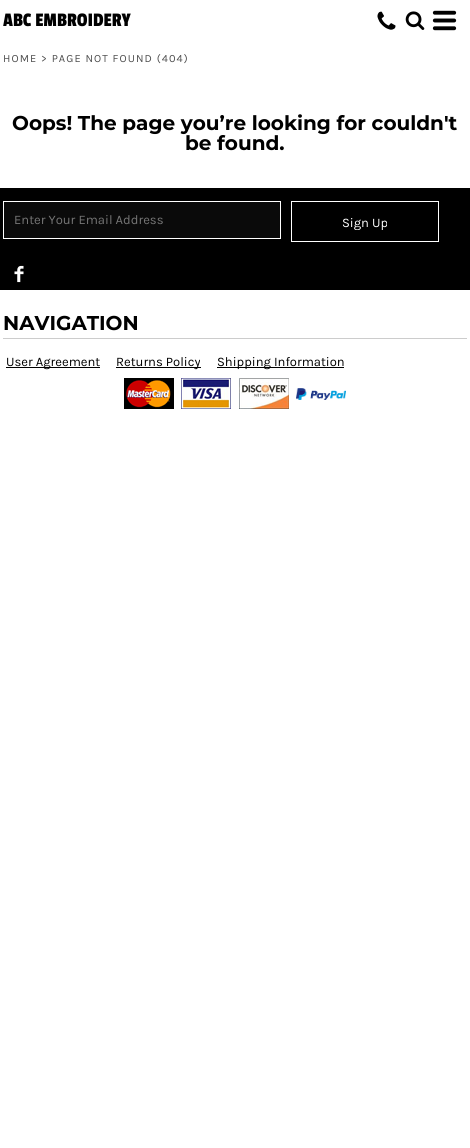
#include <cairo/cairo.h>
#include <math.h>
#include <stddef.h>


static void draw_spaced(cairo_t *cr, double x, double y, const char *s, double letter, double word) {
  cairo_move_to(cr, x, y);
  while (*s) {
    char ch[5] = {0};
    int n = 0;
    do ch[n++] = *s++; while ((*s & 0xC0) == 0x80);
    cairo_show_text(cr, ch);
    cairo_rel_move_to(cr, letter + word * (*ch == ' '), 0);
  }
}

static void draw_image(cairo_t *cr, const char *path, double x, double y, double w, double h) {
  cairo_surface_t *image = cairo_image_surface_create_from_png(path);
  cairo_save(cr);
  cairo_set_source_surface(cr, image, x, y);
  cairo_rectangle(cr, x, y, w, h);
  cairo_fill(cr);
  cairo_restore(cr);
  cairo_surface_destroy(image);
}

static void draw(cairo_t *cr) {
  cairo_set_source_rgb(cr, 1, 1, 1);
  cairo_paint(cr);
  draw_image(cr, "images/1.png", 405, 11, 20, 19);
  draw_image(cr, "images/2.png", 432, 10, 25, 21);
  cairo_set_source_rgb(cr, 0, 0, 0);
  cairo_rectangle(cr, 0, 188, 470, 102);
  cairo_fill(cr);
  cairo_set_source_rgb(cr, 10 / 255.0, 10 / 255.0, 10 / 255.0);
  cairo_rectangle(cr, 3.5, 201.5, 277, 37);
  cairo_fill_preserve(cr);
  cairo_set_source_rgb(cr, 1, 1, 1);
  cairo_set_line_width(cr, 1);
  cairo_stroke(cr);
  cairo_rectangle(cr, 291.5, 201.5, 147, 40);
  cairo_stroke(cr);
  draw_image(cr, "images/3.png", 14, 265, 10, 18);
  cairo_set_source_rgb(cr, 204 / 255.0, 204 / 255.0, 204 / 255.0);
  cairo_rectangle(cr, 3, 338, 464, 1);
  cairo_fill(cr);
  cairo_set_source_rgb(cr, 0, 0, 0);
  cairo_rectangle(cr, 6, 367, 94, 1);
  cairo_fill(cr);
  cairo_rectangle(cr, 116, 367, 85, 1);
  cairo_fill(cr);
  cairo_rectangle(cr, 217, 367, 127, 1);
  cairo_fill(cr);
  draw_image(cr, "images/4.png", 124, 378, 50, 31);
  draw_image(cr, "images/5.png", 181, 378, 50, 31);
  draw_image(cr, "images/6.png", 239, 378, 50, 31);
  draw_image(cr, "images/7.png", 296, 388, 50, 12);
  cairo_select_font_face(cr, "Passion One", CAIRO_FONT_SLANT_NORMAL, CAIRO_FONT_WEIGHT_NORMAL);
  cairo_set_font_size(cr, 20);
  cairo_move_to(cr, 3, 26);
  cairo_show_text(cr, "ABC EMBROIDERY");
  cairo_select_font_face(cr, "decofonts", CAIRO_FONT_SLANT_NORMAL, CAIRO_FONT_WEIGHT_NORMAL);
  cairo_set_font_size(cr, 23);
  cairo_move_to(cr, 375, 33);
  cairo_show_text(cr, ";");
  cairo_select_font_face(cr, "Karla", CAIRO_FONT_SLANT_NORMAL, CAIRO_FONT_WEIGHT_NORMAL);
  cairo_set_font_size(cr, 11);
  cairo_set_source_rgb(cr, 77 / 255.0, 77 / 255.0, 77 / 255.0);
  draw_spaced(cr, 3, 62, "HOME > PAGE NOT FOUND (404)", 1.1, 0);
  cairo_select_font_face(cr, "Montserrat", CAIRO_FONT_SLANT_NORMAL, CAIRO_FONT_WEIGHT_BOLD);
  cairo_set_font_size(cr, 20);
  cairo_set_source_rgb(cr, 0, 0, 0);
  cairo_move_to(cr, 12, 130);
  cairo_show_text(cr, "Oops! The page you’re looking for couldn't");
  cairo_move_to(cr, 185, 150);
  cairo_show_text(cr, "be found.");
  cairo_select_font_face(cr, "Karla", CAIRO_FONT_SLANT_NORMAL, CAIRO_FONT_WEIGHT_NORMAL);
  cairo_set_font_size(cr, 13);
  cairo_set_source_rgb(cr, 117 / 255.0, 117 / 255.0, 117 / 255.0);
  cairo_move_to(cr, 14, 224);
  cairo_show_text(cr, "Enter Your Email Address");
  cairo_save(cr);
  cairo_rectangle(cr, 342, 215, 46, 15);
  cairo_clip(cr);
  cairo_set_source_rgb(cr, 1, 1, 1);
  cairo_move_to(cr, 342, 227);
  cairo_show_text(cr, "Sign Up");
  cairo_restore(cr);
  cairo_select_font_face(cr, "Montserrat", CAIRO_FONT_SLANT_NORMAL, CAIRO_FONT_WEIGHT_BOLD);
  cairo_set_font_size(cr, 20);
  cairo_set_source_rgb(cr, 0, 0, 0);
  cairo_move_to(cr, 3, 330);
  cairo_show_text(cr, "NAVIGATION");
  cairo_select_font_face(cr, "Karla", CAIRO_FONT_SLANT_NORMAL, CAIRO_FONT_WEIGHT_NORMAL);
  cairo_set_font_size(cr, 13);
  cairo_move_to(cr, 6, 366);
  cairo_show_text(cr, "User Agreement");
  cairo_move_to(cr, 116, 366);
  cairo_show_text(cr, "Returns Policy");
  cairo_move_to(cr, 217, 366);
  cairo_show_text(cr, "Shipping Information");
}

int main(void) {
  cairo_surface_t *surface = cairo_image_surface_create(CAIRO_FORMAT_RGB24, 470, 1148);
  cairo_t *cr = cairo_create(surface);
  cairo_font_options_t *options = cairo_font_options_create();
  cairo_font_options_set_hint_metrics(options, CAIRO_HINT_METRICS_OFF);
  cairo_font_options_set_hint_style(options, CAIRO_HINT_STYLE_NONE);
  cairo_set_font_options(cr, options);
  cairo_set_miter_limit(cr, 4);
  draw(cr);
  cairo_surface_write_to_png(surface, "out.png");
  cairo_font_options_destroy(options);
  cairo_destroy(cr);
  cairo_surface_destroy(surface);
  return 0;
}
